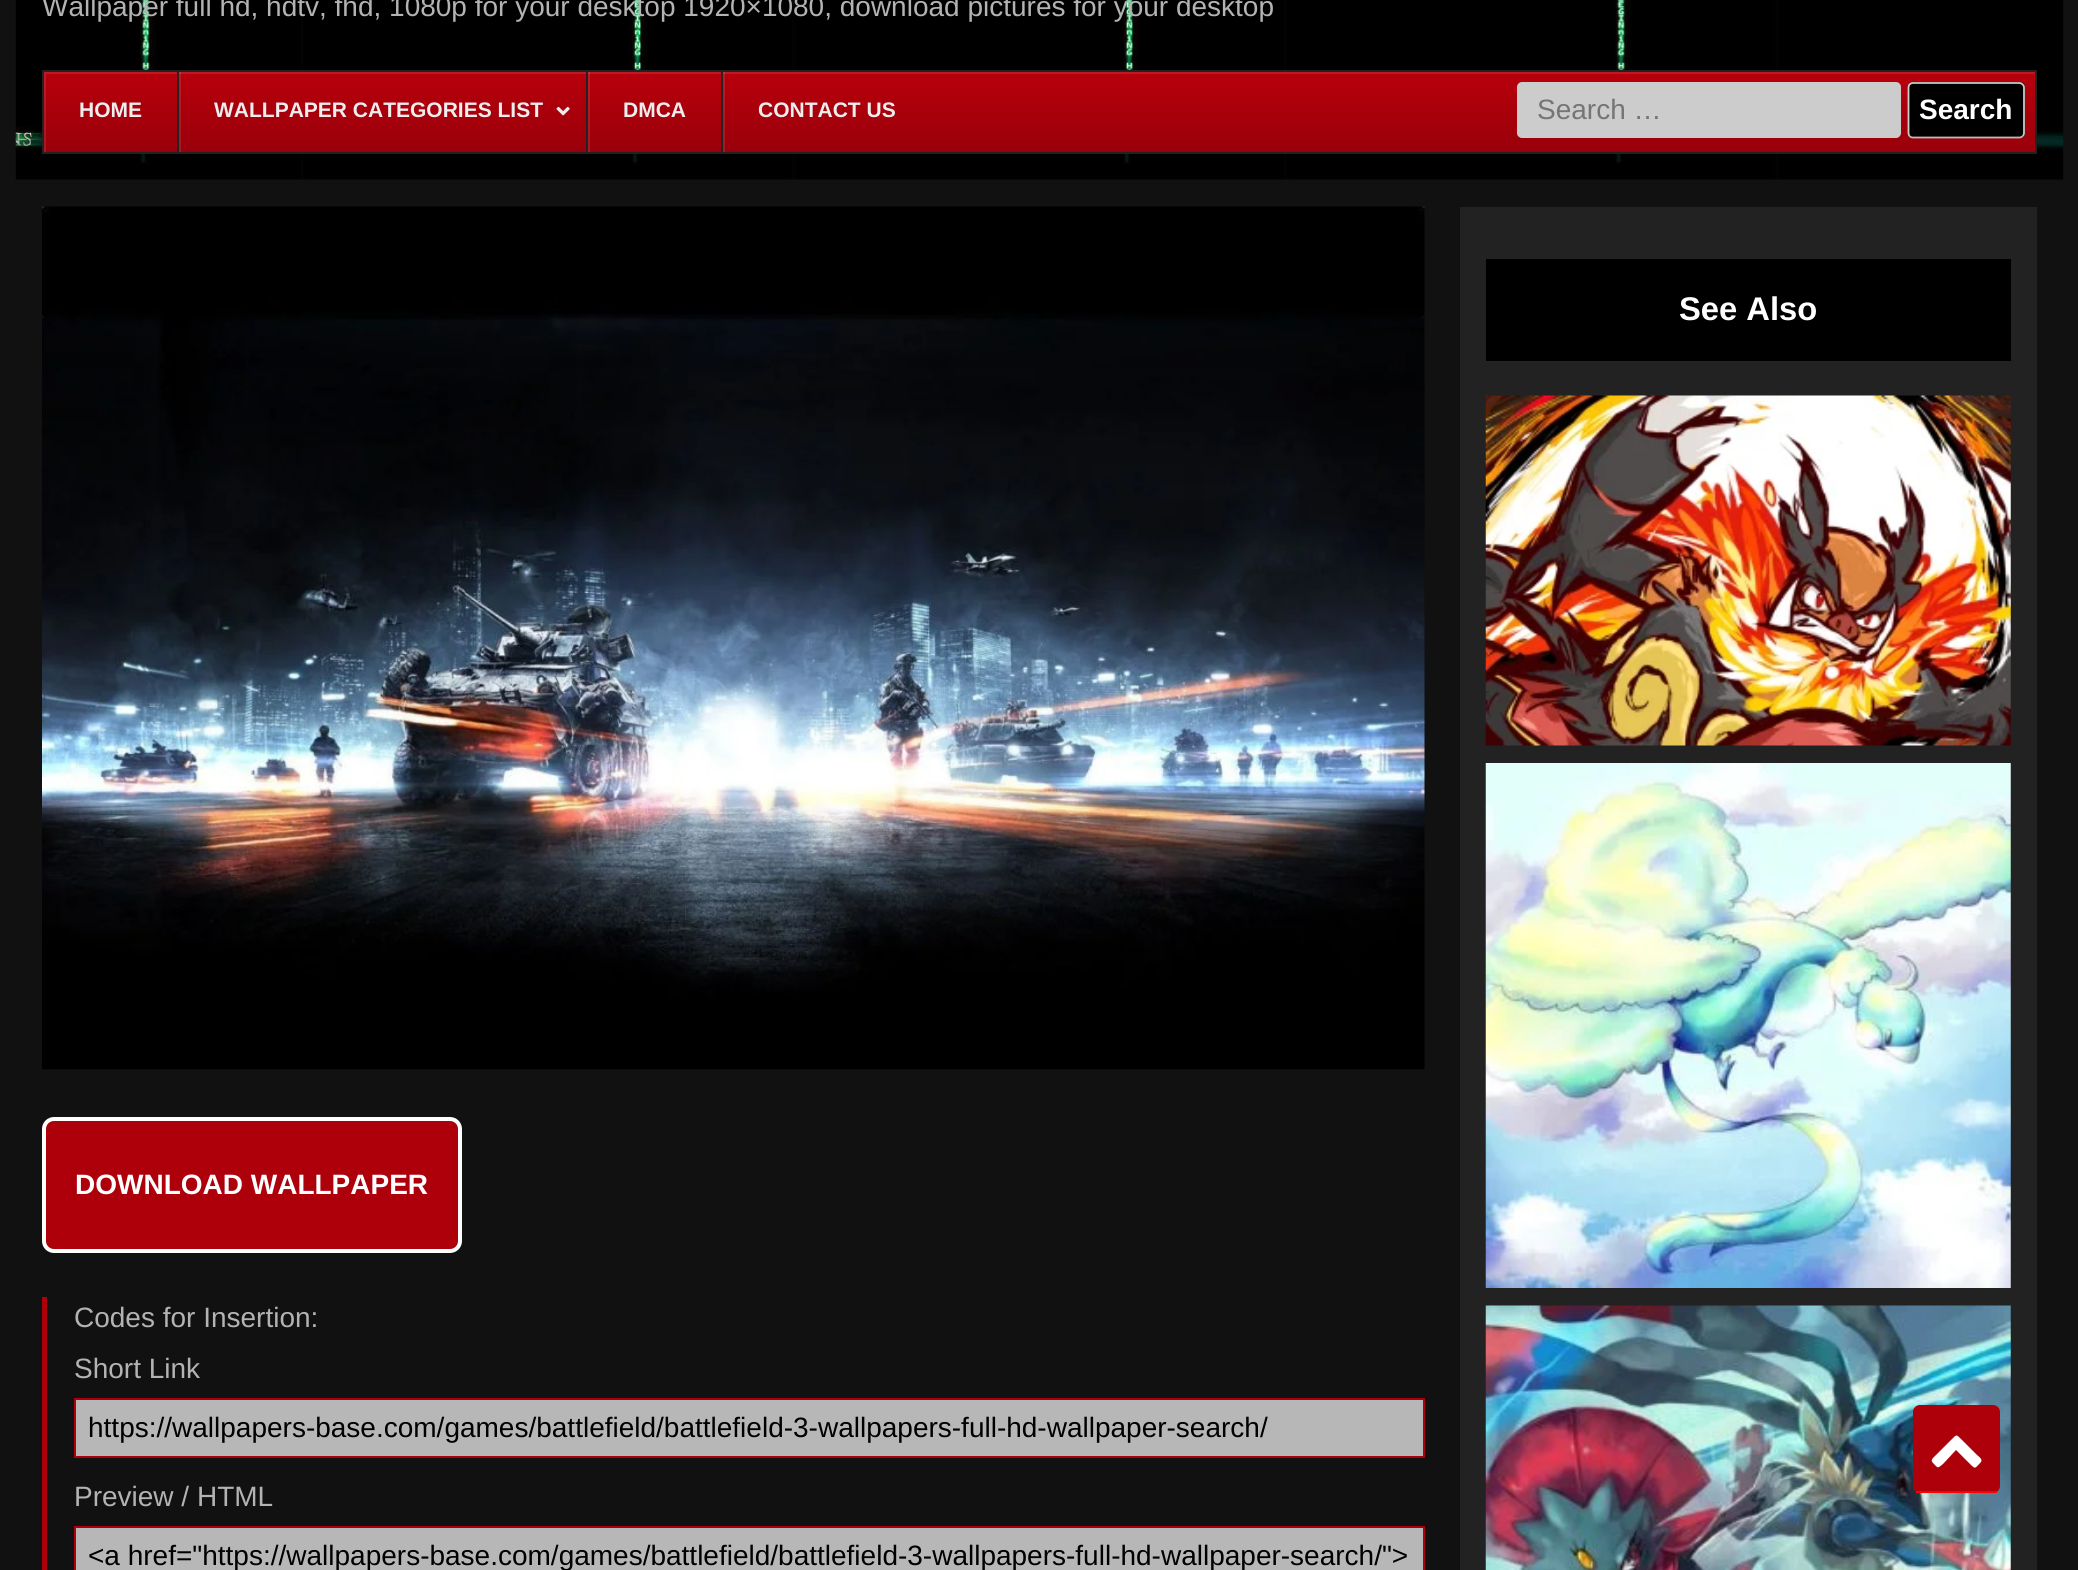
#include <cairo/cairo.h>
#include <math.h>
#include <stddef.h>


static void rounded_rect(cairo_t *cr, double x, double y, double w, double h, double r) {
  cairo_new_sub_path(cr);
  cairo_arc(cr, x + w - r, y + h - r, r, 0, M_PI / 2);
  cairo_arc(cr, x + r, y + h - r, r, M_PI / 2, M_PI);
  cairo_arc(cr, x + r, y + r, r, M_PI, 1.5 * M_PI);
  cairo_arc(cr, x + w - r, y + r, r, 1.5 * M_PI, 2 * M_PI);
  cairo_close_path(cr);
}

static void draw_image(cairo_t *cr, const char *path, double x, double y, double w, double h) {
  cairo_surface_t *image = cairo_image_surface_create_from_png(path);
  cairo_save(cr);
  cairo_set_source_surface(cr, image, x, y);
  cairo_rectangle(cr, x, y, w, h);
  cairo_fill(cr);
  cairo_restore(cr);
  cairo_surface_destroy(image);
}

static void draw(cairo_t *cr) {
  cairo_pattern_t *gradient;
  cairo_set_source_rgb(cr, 17 / 255.0, 17 / 255.0, 17 / 255.0);
  cairo_paint(cr);
  draw_image(cr, "images/1.png", 15, 0, 2049, 180);
  gradient = cairo_pattern_create_linear(1040, 72, 1040, 152);
  cairo_pattern_add_color_stop_rgba(gradient, 0, 184 / 255.0, 0, 12 / 255.0, 1);
  cairo_pattern_add_color_stop_rgba(gradient, 1, 153 / 255.0, 0, 10 / 255.0, 1);
  cairo_set_source(cr, gradient);
  cairo_pattern_destroy(gradient);
  cairo_rectangle(cr, 44, 72, 1991, 80);
  cairo_fill(cr);
  cairo_save(cr);
  cairo_rectangle(cr, 44, 72, 1991, 80);
  cairo_clip(cr);
  cairo_set_source_rgba(cr, 1, 1, 1, 0.1);
  cairo_set_fill_rule(cr, CAIRO_FILL_RULE_EVEN_ODD);
  cairo_new_path(cr);
  cairo_move_to(cr, -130, -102);
  cairo_line_to(cr, 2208, -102);
  cairo_line_to(cr, 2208, 326);
  cairo_line_to(cr, -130, 326);
  cairo_close_path(cr);
  cairo_move_to(cr, 46, 74);
  cairo_line_to(cr, 2037, 74);
  cairo_line_to(cr, 2037, 154);
  cairo_line_to(cr, 46, 154);
  cairo_close_path(cr);
  cairo_fill(cr);
  cairo_restore(cr);
  cairo_rectangle(cr, 43, 71, 1993, 82);
  cairo_set_source_rgb(cr, 34 / 255.0, 34 / 255.0, 34 / 255.0);
  cairo_stroke(cr);
  cairo_set_source_rgba(cr, 1, 1, 1, 0.1);
  cairo_rectangle(cr, 179, 72, 2, 80);
  cairo_fill(cr);
  cairo_set_source_rgb(cr, 34 / 255.0, 34 / 255.0, 34 / 255.0);
  cairo_rectangle(cr, 177, 72, 2, 80);
  cairo_fill(cr);
  draw_image(cr, "images/2.png", 556, 106, 14, 10);
  cairo_set_source_rgba(cr, 1, 1, 1, 0.1);
  cairo_rectangle(cr, 588, 72, 2, 80);
  cairo_fill(cr);
  cairo_set_source_rgb(cr, 34 / 255.0, 34 / 255.0, 34 / 255.0);
  cairo_rectangle(cr, 586, 72, 2, 80);
  cairo_fill(cr);
  cairo_set_source_rgba(cr, 1, 1, 1, 0.1);
  cairo_rectangle(cr, 723, 72, 2, 80);
  cairo_fill(cr);
  cairo_set_source_rgb(cr, 34 / 255.0, 34 / 255.0, 34 / 255.0);
  cairo_rectangle(cr, 721, 72, 2, 80);
  cairo_fill(cr);
  cairo_set_source_rgb(cr, 204 / 255.0, 204 / 255.0, 204 / 255.0);
  rounded_rect(cr, 1518, 83, 382, 54, 4);
  cairo_fill_preserve(cr);
  cairo_stroke(cr);
  cairo_set_source_rgb(cr, 0, 0, 0);
  rounded_rect(cr, 1908, 82, 117, 56, 5);
  cairo_fill(cr);
  cairo_new_path(cr);
  cairo_move_to(cr, 2022.5, 136);
  cairo_curve_to(cr, 2022, 137, 2020.5, 137.5, 2019.5, 137.5);
  cairo_line_to(cr, 1913, 137.5);
  cairo_curve_to(cr, 1911.5, 137.5, 1910.5, 137, 1909.5, 136);
  cairo_set_source_rgb(cr, 187 / 255.0, 187 / 255.0, 187 / 255.0);
  cairo_set_line_width(cr, 1.8);
  cairo_stroke(cr);
  cairo_new_path(cr);
  cairo_move_to(cr, 1909.5, 136);
  cairo_curve_to(cr, 1909, 135.5, 1908.5, 134, 1908.5, 133);
  cairo_line_to(cr, 1908.5, 87.5);
  cairo_curve_to(cr, 1908.5, 86.5, 1909, 85, 1909.5, 84.5);
  cairo_curve_to(cr, 1910.5, 83.5, 1911.5, 83, 1913, 83);
  cairo_line_to(cr, 2019.5, 83);
  cairo_curve_to(cr, 2020.5, 83, 2022, 83.5, 2022.5, 84.5);
  cairo_curve_to(cr, 2023.5, 85, 2024, 86.5, 2024, 87.5);
  cairo_line_to(cr, 2024, 133);
  cairo_curve_to(cr, 2024, 134, 2023.5, 135.5, 2022.5, 136);
  cairo_set_source_rgb(cr, 204 / 255.0, 204 / 255.0, 204 / 255.0);
  cairo_stroke(cr);
  cairo_set_source_rgb(cr, 34 / 255.0, 34 / 255.0, 34 / 255.0);
  cairo_rectangle(cr, 1460, 207, 577, 1363);
  cairo_fill(cr);
  cairo_set_source_rgb(cr, 0, 0, 0);
  cairo_rectangle(cr, 1486, 259, 525, 102);
  cairo_fill(cr);
  draw_image(cr, "images/3.png", 1485, 395, 526, 351);
  draw_image(cr, "images/4.png", 1485, 763, 526, 525);
  draw_image(cr, "images/5.png", 1485, 1305, 526, 265);
  draw_image(cr, "images/6.png", 42, 206, 1383, 864);
  cairo_set_source_rgb(cr, 173 / 255.0, 0, 11 / 255.0);
  rounded_rect(cr, 44, 1119, 416, 132, 10);
  cairo_fill_preserve(cr);
  cairo_set_source_rgb(cr, 1, 1, 1);
  cairo_set_line_width(cr, 4);
  cairo_stroke(cr);
  cairo_set_source_rgb(cr, 173 / 255.0, 0, 11 / 255.0);
  cairo_rectangle(cr, 42, 1297, 5, 273);
  cairo_fill(cr);
  cairo_set_source_rgb(cr, 183 / 255.0, 183 / 255.0, 183 / 255.0);
  cairo_rectangle(cr, 75, 1399, 1349, 58);
  cairo_fill_preserve(cr);
  cairo_set_source_rgb(cr, 173 / 255.0, 0, 11 / 255.0);
  cairo_set_line_width(cr, 2);
  cairo_stroke(cr);
  cairo_set_source_rgb(cr, 183 / 255.0, 183 / 255.0, 183 / 255.0);
  cairo_rectangle(cr, 75, 1527, 1349, 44);
  cairo_fill_preserve(cr);
  cairo_set_source_rgb(cr, 173 / 255.0, 0, 11 / 255.0);
  cairo_stroke(cr);
  rounded_rect(cr, 1913, 1405, 87, 88, 7);
  cairo_fill(cr);
  cairo_set_source_rgb(cr, 1, 0, 0);
  cairo_rectangle(cr, 1916, 1491, 81, 2);
  cairo_fill(cr);
  cairo_set_source_rgb(cr, 1, 1, 1);
  cairo_new_path(cr);
  cairo_move_to(cr, 1981, 1462);
  cairo_curve_to(cr, 1975, 1468, 1976, 1470, 1970, 1464);
  cairo_line_to(cr, 1956, 1450);
  cairo_line_to(cr, 1943, 1464);
  cairo_curve_to(cr, 1937, 1469, 1938, 1468, 1933, 1463);
  cairo_curve_to(cr, 1930, 1460, 1933, 1458, 1936, 1455);
  cairo_line_to(cr, 1951, 1440);
  cairo_curve_to(cr, 1957, 1434, 1956, 1434, 1962, 1440);
  cairo_line_to(cr, 1977, 1455);
  cairo_curve_to(cr, 1978, 1456, 1983, 1459, 1981, 1462);
  cairo_close_path(cr);
  cairo_fill(cr);
  cairo_select_font_face(cr, "Liberation Sans", CAIRO_FONT_SLANT_NORMAL, CAIRO_FONT_WEIGHT_NORMAL);
  cairo_set_font_size(cr, 28);
  cairo_set_source_rgb(cr, 179 / 255.0, 179 / 255.0, 179 / 255.0);
  cairo_move_to(cr, 42, 16);
  cairo_show_text(cr, "Wallpaper full hd, hdtv, fhd, 1080p for your desktop 1920×1080, download pictures for your desktop");
  cairo_select_font_face(cr, "Liberation Sans", CAIRO_FONT_SLANT_NORMAL, CAIRO_FONT_WEIGHT_BOLD);
  cairo_set_font_size(cr, 21);
  cairo_set_source_rgb(cr, 238 / 255.0, 238 / 255.0, 238 / 255.0);
  cairo_move_to(cr, 79, 117);
  cairo_show_text(cr, "HOME");
  cairo_move_to(cr, 214, 117);
  cairo_show_text(cr, "WALLPAPER CATEGORIES LIST");
  cairo_move_to(cr, 623, 117);
  cairo_show_text(cr, "DMCA");
  cairo_move_to(cr, 758, 117);
  cairo_show_text(cr, "CONTACT US");
  cairo_select_font_face(cr, "Liberation Sans", CAIRO_FONT_SLANT_NORMAL, CAIRO_FONT_WEIGHT_NORMAL);
  cairo_set_font_size(cr, 28);
  cairo_set_source_rgb(cr, 117 / 255.0, 117 / 255.0, 117 / 255.0);
  cairo_move_to(cr, 1537, 119);
  cairo_show_text(cr, "Search …");
  cairo_select_font_face(cr, "Liberation Sans", CAIRO_FONT_SLANT_NORMAL, CAIRO_FONT_WEIGHT_BOLD);
  cairo_set_source_rgb(cr, 1, 1, 1);
  cairo_move_to(cr, 1919, 119);
  cairo_show_text(cr, "Search");
  cairo_set_font_size(cr, 32.75);
  cairo_move_to(cr, 1679, 320);
  cairo_show_text(cr, "See Also");
  cairo_set_font_size(cr, 28);
  cairo_move_to(cr, 75, 1194);
  cairo_show_text(cr, "DOWNLOAD WALLPAPER");
  cairo_select_font_face(cr, "Liberation Sans", CAIRO_FONT_SLANT_NORMAL, CAIRO_FONT_WEIGHT_NORMAL);
  cairo_set_source_rgb(cr, 179 / 255.0, 179 / 255.0, 179 / 255.0);
  cairo_move_to(cr, 74, 1327);
  cairo_show_text(cr, "Codes for Insertion:");
  cairo_move_to(cr, 74, 1378);
  cairo_show_text(cr, "Short Link");
  cairo_set_source_rgb(cr, 0, 0, 0);
  cairo_move_to(cr, 88, 1437);
  cairo_show_text(cr, "https://wallpapers-base.com/games/battlefield/battlefield-3-wallpapers-full-hd-wallpaper-search/");
  cairo_set_source_rgb(cr, 179 / 255.0, 179 / 255.0, 179 / 255.0);
  cairo_move_to(cr, 74, 1506);
  cairo_show_text(cr, "Preview / HTML");
  cairo_set_source_rgb(cr, 0, 0, 0);
  cairo_move_to(cr, 88, 1565);
  cairo_show_text(cr, "<a href=\"https://wallpapers-base.com/games/battlefield/battlefield-3-wallpapers-full-hd-wallpaper-search/\">");
}

int main(void) {
  cairo_surface_t *surface = cairo_image_surface_create(CAIRO_FORMAT_RGB24, 2078, 1570);
  cairo_t *cr = cairo_create(surface);
  cairo_font_options_t *options = cairo_font_options_create();
  cairo_font_options_set_hint_metrics(options, CAIRO_HINT_METRICS_OFF);
  cairo_font_options_set_hint_style(options, CAIRO_HINT_STYLE_NONE);
  cairo_set_font_options(cr, options);
  cairo_set_miter_limit(cr, 4);
  draw(cr);
  cairo_surface_write_to_png(surface, "out.png");
  cairo_font_options_destroy(options);
  cairo_destroy(cr);
  cairo_surface_destroy(surface);
  return 0;
}
